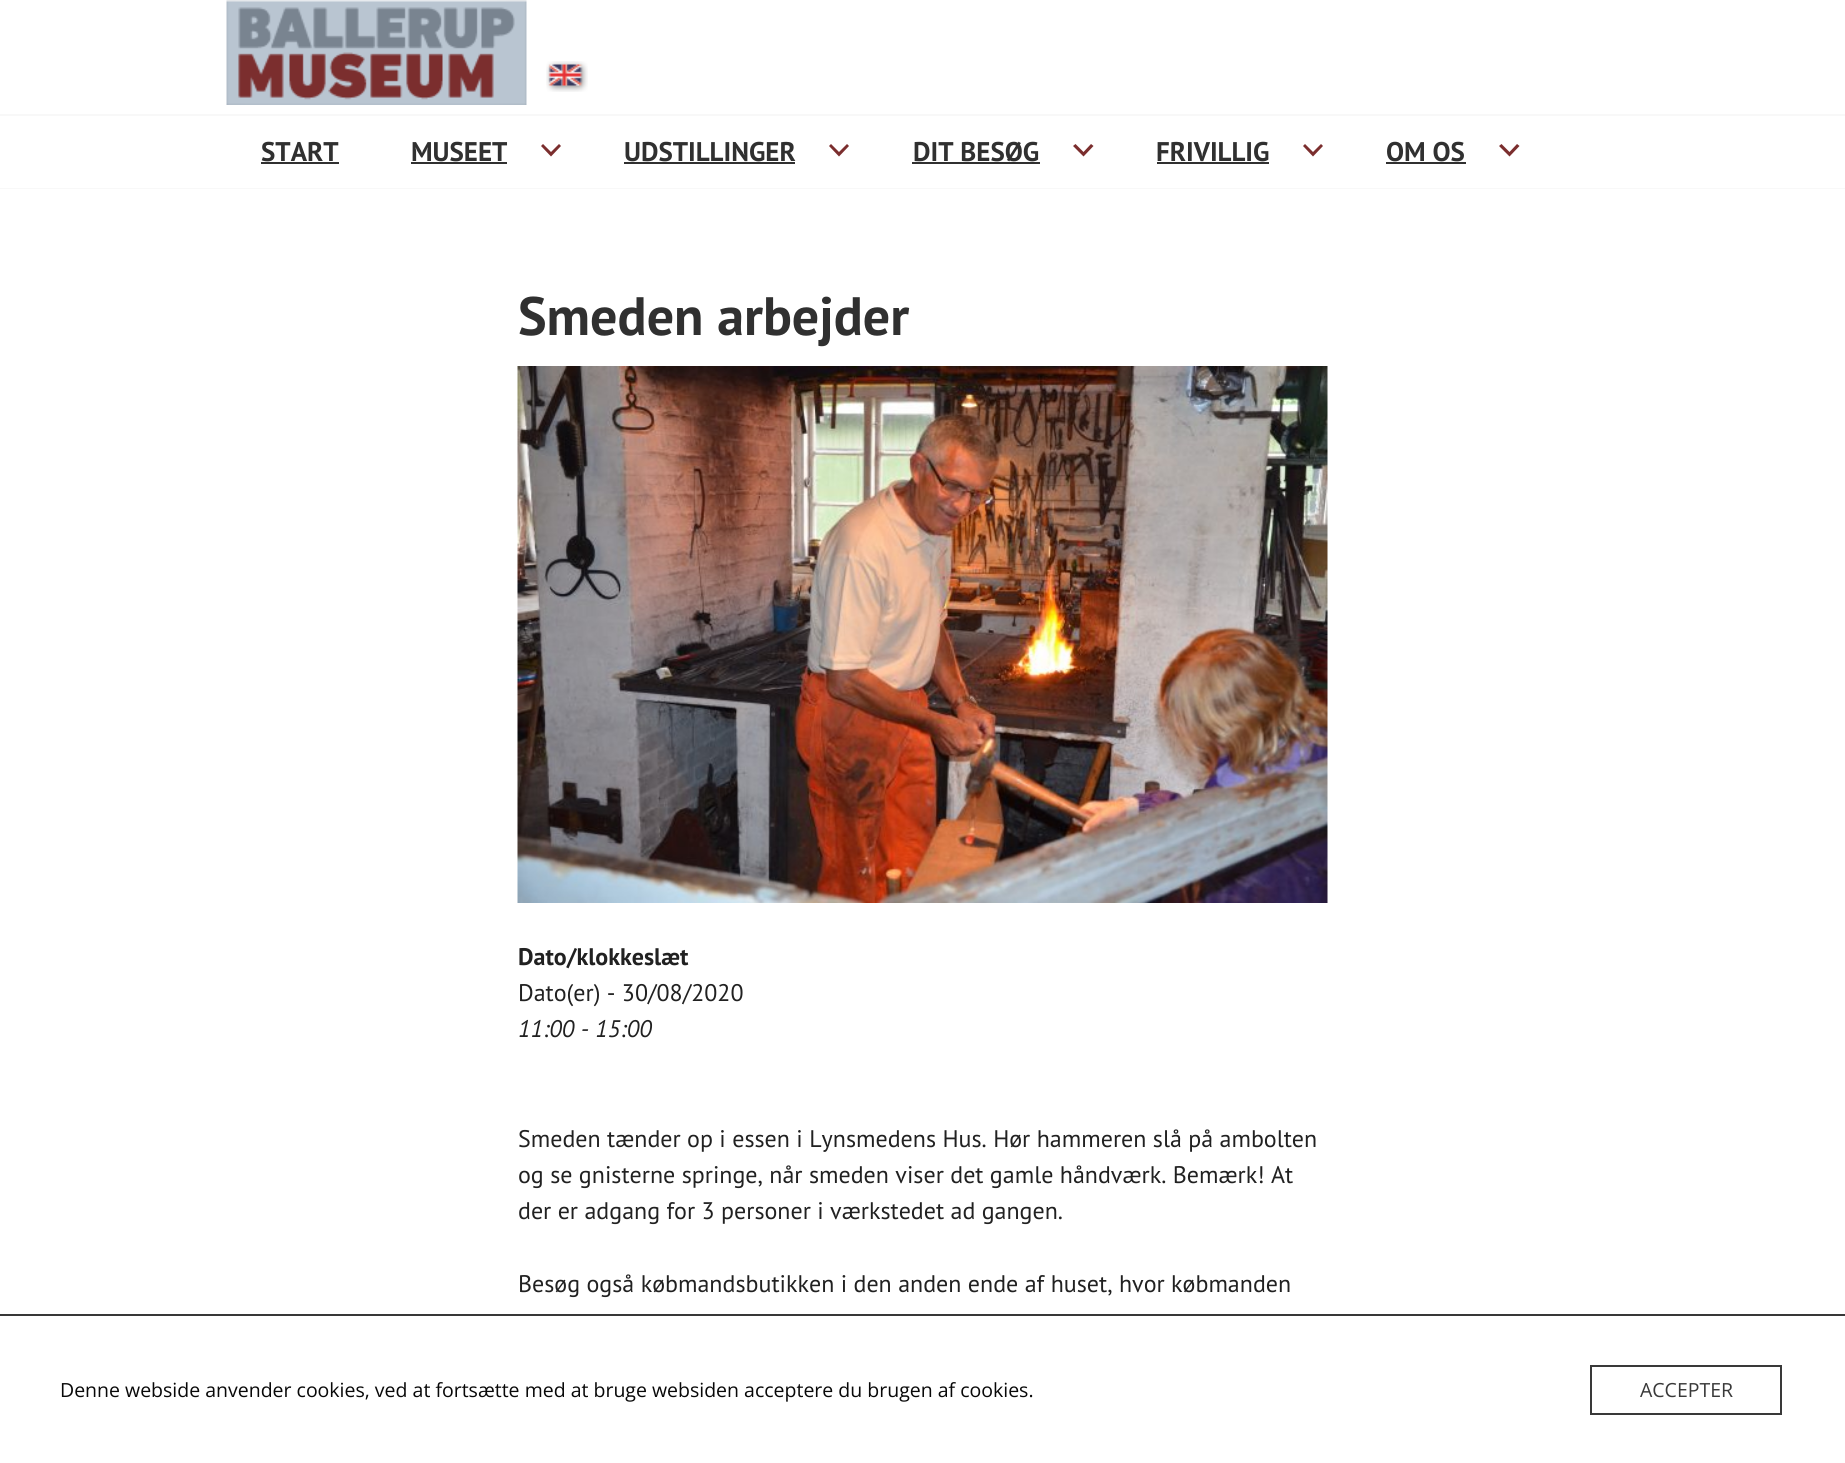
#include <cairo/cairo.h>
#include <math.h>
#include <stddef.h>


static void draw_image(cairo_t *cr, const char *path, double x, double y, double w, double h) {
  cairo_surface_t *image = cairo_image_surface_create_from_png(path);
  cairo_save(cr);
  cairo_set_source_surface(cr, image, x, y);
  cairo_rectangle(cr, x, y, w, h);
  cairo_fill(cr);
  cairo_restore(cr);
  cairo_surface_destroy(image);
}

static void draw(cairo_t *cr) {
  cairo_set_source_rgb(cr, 1, 1, 1);
  cairo_paint(cr);
  cairo_set_source_rgb(cr, 248 / 255.0, 248 / 255.0, 248 / 255.0);
  cairo_rectangle(cr, 0, 188, 1845, 1);
  cairo_fill(cr);
  draw_image(cr, "images/1.png", 226, 0, 301, 105);
  draw_image(cr, "images/2.png", 546, 61, 42, 31);
  cairo_rectangle(cr, 0, 114, 1845, 2);
  cairo_fill(cr);
  cairo_set_source_rgb(cr, 48 / 255.0, 48 / 255.0, 48 / 255.0);
  cairo_rectangle(cr, 261, 162, 78, 2);
  cairo_fill(cr);
  cairo_rectangle(cr, 411, 162, 96, 2);
  cairo_fill(cr);
  cairo_set_source_rgb(cr, 123 / 255.0, 46 / 255.0, 46 / 255.0);
  cairo_new_path(cr);
  cairo_move_to(cr, 559, 144);
  cairo_line_to(cr, 561, 146);
  cairo_line_to(cr, 551, 156.5);
  cairo_line_to(cr, 541, 146);
  cairo_line_to(cr, 543, 144);
  cairo_line_to(cr, 551, 152);
  cairo_close_path(cr);
  cairo_fill(cr);
  cairo_set_source_rgb(cr, 48 / 255.0, 48 / 255.0, 48 / 255.0);
  cairo_rectangle(cr, 624, 162, 171, 2);
  cairo_fill(cr);
  cairo_set_source_rgb(cr, 123 / 255.0, 46 / 255.0, 46 / 255.0);
  cairo_new_path(cr);
  cairo_move_to(cr, 847, 144);
  cairo_line_to(cr, 849, 146);
  cairo_line_to(cr, 839, 156.5);
  cairo_line_to(cr, 829, 146);
  cairo_line_to(cr, 831, 144);
  cairo_line_to(cr, 839, 152);
  cairo_close_path(cr);
  cairo_fill(cr);
  cairo_set_source_rgb(cr, 48 / 255.0, 48 / 255.0, 48 / 255.0);
  cairo_rectangle(cr, 912, 162, 128, 2);
  cairo_fill(cr);
  cairo_set_source_rgb(cr, 123 / 255.0, 46 / 255.0, 46 / 255.0);
  cairo_new_path(cr);
  cairo_move_to(cr, 1091, 144);
  cairo_line_to(cr, 1093.5, 146);
  cairo_line_to(cr, 1083.5, 156.5);
  cairo_line_to(cr, 1073, 146);
  cairo_line_to(cr, 1075.5, 144);
  cairo_line_to(cr, 1083.5, 152);
  cairo_close_path(cr);
  cairo_fill(cr);
  cairo_set_source_rgb(cr, 48 / 255.0, 48 / 255.0, 48 / 255.0);
  cairo_rectangle(cr, 1157, 162, 112, 2);
  cairo_fill(cr);
  cairo_set_source_rgb(cr, 123 / 255.0, 46 / 255.0, 46 / 255.0);
  cairo_new_path(cr);
  cairo_move_to(cr, 1321, 144);
  cairo_line_to(cr, 1323, 146);
  cairo_line_to(cr, 1313, 156.5);
  cairo_line_to(cr, 1303, 146);
  cairo_line_to(cr, 1305, 144);
  cairo_line_to(cr, 1313, 152);
  cairo_close_path(cr);
  cairo_fill(cr);
  cairo_set_source_rgb(cr, 48 / 255.0, 48 / 255.0, 48 / 255.0);
  cairo_rectangle(cr, 1386, 162, 80, 2);
  cairo_fill(cr);
  cairo_set_source_rgb(cr, 123 / 255.0, 46 / 255.0, 46 / 255.0);
  cairo_new_path(cr);
  cairo_move_to(cr, 1517, 144);
  cairo_line_to(cr, 1519.5, 146);
  cairo_line_to(cr, 1509.5, 156.5);
  cairo_line_to(cr, 1499, 146);
  cairo_line_to(cr, 1501.5, 144);
  cairo_line_to(cr, 1509.5, 152);
  cairo_close_path(cr);
  cairo_fill(cr);
  draw_image(cr, "images/3.png", 517, 366, 811, 537);
  cairo_set_source_rgba(cr, 51 / 255.0, 51 / 255.0, 51 / 255.0, 0.97);
  cairo_rectangle(cr, 0, 1314, 1845, 2);
  cairo_fill(cr);
  cairo_rectangle(cr, 1591, 1366, 190, 48);
  cairo_set_source_rgb(cr, 57 / 255.0, 57 / 255.0, 57 / 255.0);
  cairo_stroke(cr);
  cairo_select_font_face(cr, "PT Sans", CAIRO_FONT_SLANT_NORMAL, CAIRO_FONT_WEIGHT_BOLD);
  cairo_set_font_size(cr, 27);
  cairo_set_source_rgb(cr, 48 / 255.0, 48 / 255.0, 48 / 255.0);
  cairo_move_to(cr, 261, 161);
  cairo_show_text(cr, "START");
  cairo_move_to(cr, 411, 161);
  cairo_show_text(cr, "MUSEET");
  cairo_move_to(cr, 624, 161);
  cairo_show_text(cr, "UDSTILLINGER");
  cairo_move_to(cr, 913, 161);
  cairo_show_text(cr, "DIT BESØG");
  cairo_move_to(cr, 1156, 161);
  cairo_show_text(cr, "FRIVILLIG");
  cairo_move_to(cr, 1386, 161);
  cairo_show_text(cr, "OM OS");
  cairo_set_font_size(cr, 54);
  cairo_move_to(cr, 518, 335);
  cairo_show_text(cr, "Smeden arbejder");
  cairo_set_font_size(cr, 24);
  cairo_set_source_rgb(cr, 33 / 255.0, 33 / 255.0, 33 / 255.0);
  cairo_move_to(cr, 518, 965);
  cairo_show_text(cr, "Dato/klokkeslæt");
  cairo_select_font_face(cr, "PT Sans", CAIRO_FONT_SLANT_NORMAL, CAIRO_FONT_WEIGHT_NORMAL);
  cairo_move_to(cr, 518, 1001);
  cairo_show_text(cr, "Dato(er) - 30/08/2020");
  cairo_select_font_face(cr, "PT Sans", CAIRO_FONT_SLANT_ITALIC, CAIRO_FONT_WEIGHT_NORMAL);
  cairo_move_to(cr, 518, 1037);
  cairo_show_text(cr, "11:00 - 15:00");
  cairo_select_font_face(cr, "PT Sans", CAIRO_FONT_SLANT_NORMAL, CAIRO_FONT_WEIGHT_NORMAL);
  cairo_move_to(cr, 518, 1147);
  cairo_show_text(cr, "Smeden tænder op i essen i Lynsmedens Hus. Hør hammeren slå på ambolten");
  cairo_move_to(cr, 518, 1183);
  cairo_show_text(cr, "og se gnisterne springe, når smeden viser det gamle håndværk. Bemærk! At");
  cairo_move_to(cr, 518, 1219);
  cairo_show_text(cr, "der er adgang for 3 personer i værkstedet ad gangen.");
  cairo_move_to(cr, 518, 1292);
  cairo_show_text(cr, "Besøg også købmandsbutikken i den anden ende af huset, hvor købmanden");
  cairo_select_font_face(cr, "Open Sans", CAIRO_FONT_SLANT_NORMAL, CAIRO_FONT_WEIGHT_NORMAL);
  cairo_set_font_size(cr, 19.5);
  cairo_set_source_rgb(cr, 8 / 255.0, 8 / 255.0, 8 / 255.0);
  cairo_move_to(cr, 60, 1397);
  cairo_show_text(cr, "Denne webside anvender cookies, ved at fortsætte med at bruge websiden acceptere du brugen af cookies.");
  cairo_set_source_rgb(cr, 57 / 255.0, 57 / 255.0, 57 / 255.0);
  cairo_move_to(cr, 1640, 1397);
  cairo_show_text(cr, "ACCEPTER");
}

int main(void) {
  cairo_surface_t *surface = cairo_image_surface_create(CAIRO_FORMAT_RGB24, 1845, 1463);
  cairo_t *cr = cairo_create(surface);
  cairo_font_options_t *options = cairo_font_options_create();
  cairo_font_options_set_hint_metrics(options, CAIRO_HINT_METRICS_OFF);
  cairo_font_options_set_hint_style(options, CAIRO_HINT_STYLE_NONE);
  cairo_set_font_options(cr, options);
  cairo_set_miter_limit(cr, 4);
  draw(cr);
  cairo_surface_write_to_png(surface, "out.png");
  cairo_font_options_destroy(options);
  cairo_destroy(cr);
  cairo_surface_destroy(surface);
  return 0;
}
